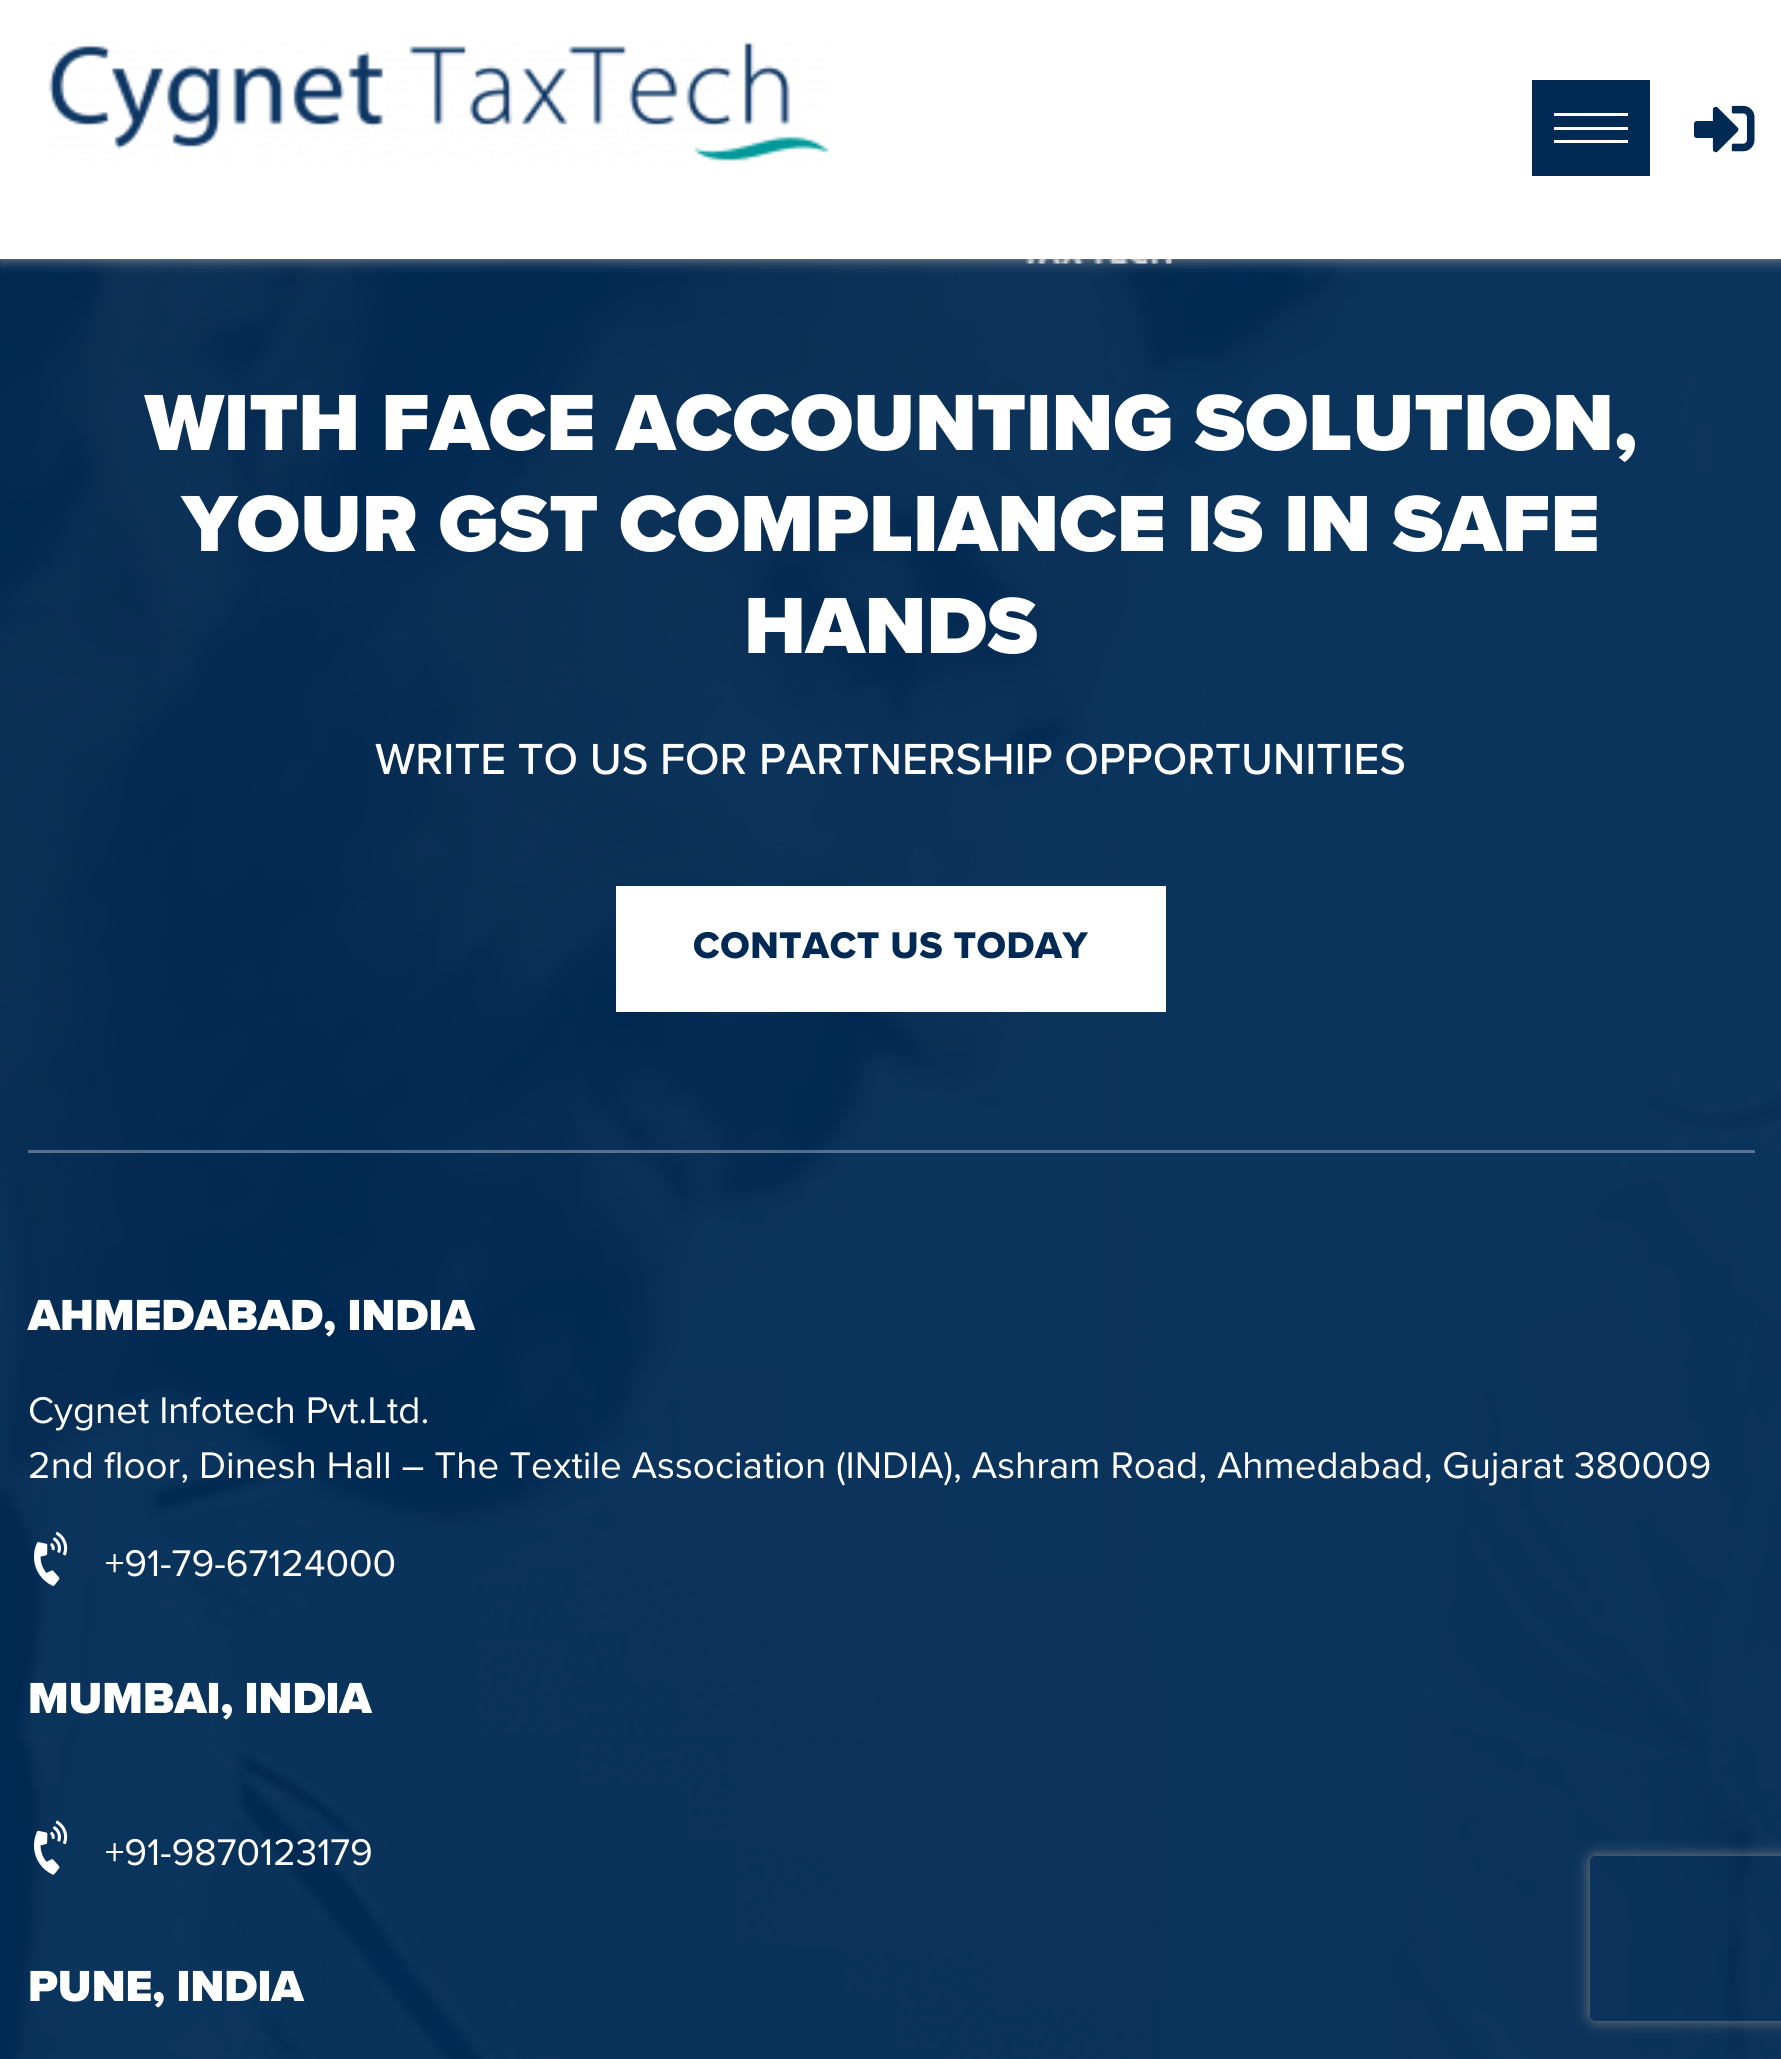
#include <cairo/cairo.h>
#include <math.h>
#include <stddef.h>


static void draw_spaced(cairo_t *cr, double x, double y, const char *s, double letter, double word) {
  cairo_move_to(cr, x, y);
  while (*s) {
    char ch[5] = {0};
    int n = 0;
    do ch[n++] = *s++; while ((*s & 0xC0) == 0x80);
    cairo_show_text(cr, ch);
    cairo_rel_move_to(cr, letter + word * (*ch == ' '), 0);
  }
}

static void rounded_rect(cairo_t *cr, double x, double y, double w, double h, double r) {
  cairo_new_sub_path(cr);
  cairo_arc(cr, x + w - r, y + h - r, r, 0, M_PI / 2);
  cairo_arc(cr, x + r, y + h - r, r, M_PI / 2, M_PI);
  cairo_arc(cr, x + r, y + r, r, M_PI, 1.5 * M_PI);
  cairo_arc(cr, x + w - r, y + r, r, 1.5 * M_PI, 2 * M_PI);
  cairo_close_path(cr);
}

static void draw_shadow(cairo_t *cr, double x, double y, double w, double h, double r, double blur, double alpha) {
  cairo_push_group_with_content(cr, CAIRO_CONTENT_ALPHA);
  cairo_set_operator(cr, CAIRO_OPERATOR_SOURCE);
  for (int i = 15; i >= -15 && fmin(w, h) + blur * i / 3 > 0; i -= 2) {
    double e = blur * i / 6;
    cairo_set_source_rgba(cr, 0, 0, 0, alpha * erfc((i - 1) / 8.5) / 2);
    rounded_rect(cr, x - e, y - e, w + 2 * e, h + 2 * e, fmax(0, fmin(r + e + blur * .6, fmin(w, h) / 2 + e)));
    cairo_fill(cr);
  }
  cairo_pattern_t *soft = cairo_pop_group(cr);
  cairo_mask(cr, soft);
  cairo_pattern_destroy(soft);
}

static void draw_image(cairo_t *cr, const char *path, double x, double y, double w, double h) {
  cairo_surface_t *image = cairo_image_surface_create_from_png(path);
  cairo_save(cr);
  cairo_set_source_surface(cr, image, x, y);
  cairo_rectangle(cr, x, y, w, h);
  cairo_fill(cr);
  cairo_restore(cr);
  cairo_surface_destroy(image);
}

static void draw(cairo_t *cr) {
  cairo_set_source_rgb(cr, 0, 42 / 255.0, 84 / 255.0);
  cairo_paint(cr);
  draw_image(cr, "images/3.png", 0, 259, 1781, 1800);
  draw_image(cr, "images/4.png", 1025, 259, 147, 5);
  cairo_set_source_rgb(cr, 152 / 255.0, 152 / 255.0, 152 / 255.0);
  draw_shadow(cr, 0, 0, 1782, 259, 0, 7, 1);
  cairo_set_source_rgb(cr, 1, 1, 1);
  cairo_rectangle(cr, 0, 0, 1781, 259);
  cairo_fill(cr);
  draw_image(cr, "images/1.png", 48, 41, 782, 122);
  cairo_set_source_rgb(cr, 0, 42 / 255.0, 84 / 255.0);
  cairo_rectangle(cr, 1532, 80, 118, 96);
  cairo_fill(cr);
  cairo_set_source_rgb(cr, 1, 1, 1);
  cairo_rectangle(cr, 1554, 113, 74, 3);
  cairo_fill(cr);
  cairo_rectangle(cr, 1554, 127, 74, 3);
  cairo_fill(cr);
  cairo_rectangle(cr, 1554, 140, 74, 3);
  cairo_fill(cr);
  draw_image(cr, "images/2.png", 1694, 105, 61, 48);
  cairo_rectangle(cr, 616, 886, 550, 126);
  cairo_fill(cr);
  cairo_set_source_rgba(cr, 1, 1, 1, 0.32);
  cairo_rectangle(cr, 28, 1150, 1727, 3);
  cairo_fill(cr);
  draw_image(cr, "images/5.png", 34, 1531, 34, 55);
  draw_image(cr, "images/6.png", 34, 1820, 34, 55);
  cairo_save(cr);
  cairo_set_fill_rule(cr, CAIRO_FILL_RULE_EVEN_ODD);
  cairo_new_path(cr);
  cairo_move_to(cr, 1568, 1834);
  cairo_line_to(cr, 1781, 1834);
  cairo_line_to(cr, 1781, 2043);
  cairo_line_to(cr, 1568, 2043);
  cairo_close_path(cr);
  cairo_move_to(cr, 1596, 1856);
  cairo_line_to(cr, 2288, 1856);
  cairo_curve_to(cr, 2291.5, 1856, 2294, 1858.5, 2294, 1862);
  cairo_line_to(cr, 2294, 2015);
  cairo_curve_to(cr, 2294, 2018.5, 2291.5, 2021, 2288, 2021);
  cairo_line_to(cr, 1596, 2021);
  cairo_curve_to(cr, 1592.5, 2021, 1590, 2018.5, 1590, 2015);
  cairo_line_to(cr, 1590, 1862);
  cairo_curve_to(cr, 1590, 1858.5, 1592.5, 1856, 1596, 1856);
  cairo_close_path(cr);
  cairo_clip(cr);
  cairo_set_source_rgb(cr, 128 / 255.0, 128 / 255.0, 128 / 255.0);
  draw_shadow(cr, 1590, 1856, 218, 165, 6, 7, 1);
  cairo_restore(cr);
  cairo_select_font_face(cr, "Proxima Nova Black", CAIRO_FONT_SLANT_NORMAL, CAIRO_FONT_WEIGHT_NORMAL);
  cairo_set_font_size(cr, 82.5);
  cairo_set_source_rgb(cr, 1, 1, 1);
  cairo_move_to(cr, 145, 450);
  cairo_show_text(cr, "WITH FACE ACCOUNTING SOLUTION,");
  cairo_move_to(cr, 182, 551);
  cairo_show_text(cr, "YOUR GST COMPLIANCE IS IN SAFE");
  cairo_move_to(cr, 744, 653);
  cairo_show_text(cr, "HANDS");
  cairo_select_font_face(cr, "Proxima Nova Medium", CAIRO_FONT_SLANT_NORMAL, CAIRO_FONT_WEIGHT_NORMAL);
  cairo_set_font_size(cr, 45.1);
  cairo_move_to(cr, 375, 774);
  cairo_show_text(cr, "WRITE TO US FOR PARTNERSHIP OPPORTUNITIES");
  cairo_select_font_face(cr, "Proxima Nova ExtraBold", CAIRO_FONT_SLANT_NORMAL, CAIRO_FONT_WEIGHT_NORMAL);
  cairo_set_font_size(cr, 38.5);
  cairo_set_source_rgb(cr, 0, 42 / 255.0, 84 / 255.0);
  draw_spaced(cr, 693, 958, "CONTACT US TODAY", 0.5, 0);
  cairo_select_font_face(cr, "Proxima Nova Black", CAIRO_FONT_SLANT_NORMAL, CAIRO_FONT_WEIGHT_NORMAL);
  cairo_set_font_size(cr, 45.1);
  cairo_set_source_rgb(cr, 1, 1, 1);
  cairo_move_to(cr, 28, 1330);
  cairo_show_text(cr, "AHMEDABAD, INDIA");
  cairo_select_font_face(cr, "Proxima Nova", CAIRO_FONT_SLANT_NORMAL, CAIRO_FONT_WEIGHT_NORMAL);
  cairo_set_font_size(cr, 38.5);
  cairo_move_to(cr, 28, 1423);
  cairo_show_text(cr, "Cygnet Infotech Pvt.Ltd.");
  cairo_move_to(cr, 28, 1478);
  cairo_show_text(cr, "2nd floor, Dinesh Hall – The Textile Association (INDIA), Ashram Road, Ahmedabad, Gujarat 380009");
  cairo_move_to(cr, 105, 1576);
  cairo_show_text(cr, "+91-79-67124000");
  cairo_select_font_face(cr, "Proxima Nova Black", CAIRO_FONT_SLANT_NORMAL, CAIRO_FONT_WEIGHT_NORMAL);
  cairo_set_font_size(cr, 45.1);
  cairo_move_to(cr, 28, 1713);
  cairo_show_text(cr, "MUMBAI, INDIA");
  cairo_select_font_face(cr, "Proxima Nova", CAIRO_FONT_SLANT_NORMAL, CAIRO_FONT_WEIGHT_NORMAL);
  cairo_set_font_size(cr, 38.5);
  cairo_move_to(cr, 105, 1865);
  cairo_show_text(cr, "+91-9870123179");
  cairo_select_font_face(cr, "Proxima Nova Black", CAIRO_FONT_SLANT_NORMAL, CAIRO_FONT_WEIGHT_NORMAL);
  cairo_set_font_size(cr, 45.1);
  cairo_move_to(cr, 28, 2001);
  cairo_show_text(cr, "PUNE, INDIA");
}

int main(void) {
  cairo_surface_t *surface = cairo_image_surface_create(CAIRO_FORMAT_RGB24, 1781, 2059);
  cairo_t *cr = cairo_create(surface);
  cairo_font_options_t *options = cairo_font_options_create();
  cairo_font_options_set_hint_metrics(options, CAIRO_HINT_METRICS_OFF);
  cairo_font_options_set_hint_style(options, CAIRO_HINT_STYLE_NONE);
  cairo_set_font_options(cr, options);
  cairo_set_miter_limit(cr, 4);
  draw(cr);
  cairo_surface_write_to_png(surface, "out.png");
  cairo_font_options_destroy(options);
  cairo_destroy(cr);
  cairo_surface_destroy(surface);
  return 0;
}
